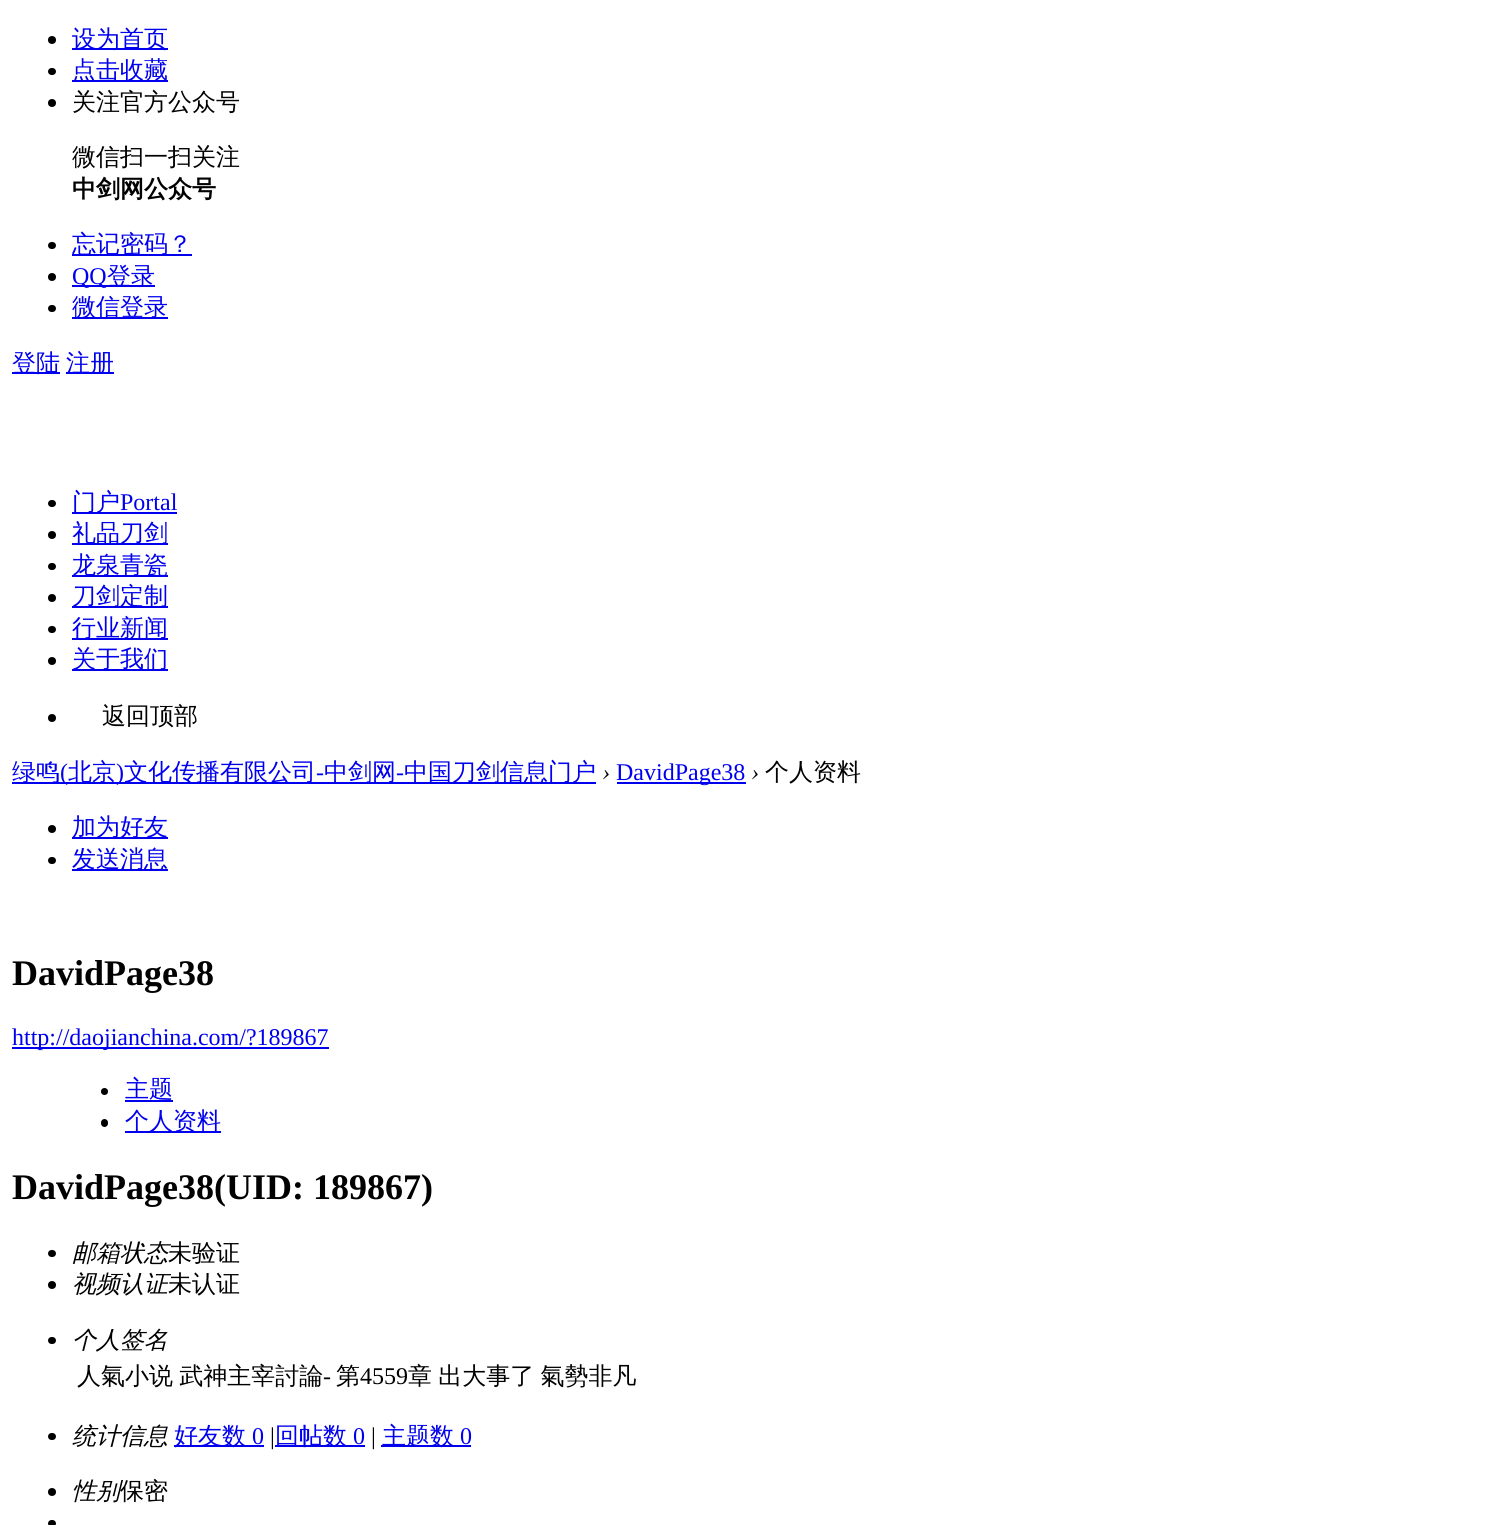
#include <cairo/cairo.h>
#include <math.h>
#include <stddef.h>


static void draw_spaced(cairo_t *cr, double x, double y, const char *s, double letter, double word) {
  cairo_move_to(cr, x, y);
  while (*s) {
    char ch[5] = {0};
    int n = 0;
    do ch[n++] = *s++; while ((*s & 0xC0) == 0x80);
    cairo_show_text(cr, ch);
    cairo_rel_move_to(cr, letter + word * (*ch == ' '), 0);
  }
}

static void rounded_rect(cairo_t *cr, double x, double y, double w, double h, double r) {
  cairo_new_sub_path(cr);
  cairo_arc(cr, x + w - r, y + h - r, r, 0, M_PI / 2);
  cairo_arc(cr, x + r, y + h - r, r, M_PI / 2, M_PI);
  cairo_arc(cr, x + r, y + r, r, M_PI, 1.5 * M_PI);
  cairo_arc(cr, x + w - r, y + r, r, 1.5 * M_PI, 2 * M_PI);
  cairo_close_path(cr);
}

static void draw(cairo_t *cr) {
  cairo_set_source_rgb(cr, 1, 1, 1);
  cairo_paint(cr);
  cairo_set_source_rgb(cr, 0, 0, 0);
  cairo_arc(cr, 52, 40, 4, 0, 2 * M_PI);
  cairo_fill(cr);
  cairo_set_source_rgb(cr, 0, 0, 238 / 255.0);
  cairo_rectangle(cr, 72, 48, 96, 2);
  cairo_fill(cr);
  cairo_set_source_rgb(cr, 0, 0, 0);
  rounded_rect(cr, 48, 68, 8, 7, 3.5);
  cairo_fill(cr);
  cairo_set_source_rgb(cr, 0, 0, 238 / 255.0);
  cairo_rectangle(cr, 72, 80, 96, 2);
  cairo_fill(cr);
  cairo_set_source_rgb(cr, 0, 0, 0);
  cairo_arc(cr, 52, 103, 4, 0, 2 * M_PI);
  cairo_fill(cr);
  rounded_rect(cr, 48, 242, 8, 7, 3.5);
  cairo_fill(cr);
  cairo_set_source_rgb(cr, 0, 0, 238 / 255.0);
  cairo_rectangle(cr, 72, 254, 120, 2);
  cairo_fill(cr);
  cairo_set_source_rgb(cr, 0, 0, 0);
  cairo_arc(cr, 52, 277, 4, 0, 2 * M_PI);
  cairo_fill(cr);
  cairo_set_source_rgb(cr, 0, 0, 238 / 255.0);
  cairo_rectangle(cr, 72, 285, 83, 2);
  cairo_fill(cr);
  cairo_set_source_rgb(cr, 0, 0, 0);
  rounded_rect(cr, 48, 305, 8, 7, 3.5);
  cairo_fill(cr);
  cairo_set_source_rgb(cr, 0, 0, 238 / 255.0);
  cairo_rectangle(cr, 72, 317, 96, 2);
  cairo_fill(cr);
  cairo_rectangle(cr, 12, 372, 48, 2);
  cairo_fill(cr);
  cairo_rectangle(cr, 66, 372, 48, 2);
  cairo_fill(cr);
  cairo_set_source_rgb(cr, 0, 0, 0);
  rounded_rect(cr, 48, 500, 8, 7, 3.5);
  cairo_fill(cr);
  cairo_set_source_rgb(cr, 0, 0, 238 / 255.0);
  cairo_rectangle(cr, 72, 512, 105, 2);
  cairo_fill(cr);
  cairo_set_source_rgb(cr, 0, 0, 0);
  cairo_arc(cr, 52, 535, 4, 0, 2 * M_PI);
  cairo_fill(cr);
  cairo_set_source_rgb(cr, 0, 0, 238 / 255.0);
  cairo_rectangle(cr, 72, 543, 96, 2);
  cairo_fill(cr);
  cairo_set_source_rgb(cr, 0, 0, 0);
  rounded_rect(cr, 48, 563, 8, 7, 3.5);
  cairo_fill(cr);
  cairo_set_source_rgb(cr, 0, 0, 238 / 255.0);
  cairo_rectangle(cr, 72, 575, 96, 2);
  cairo_fill(cr);
  cairo_set_source_rgb(cr, 0, 0, 0);
  cairo_arc(cr, 52, 598, 4, 0, 2 * M_PI);
  cairo_fill(cr);
  cairo_set_source_rgb(cr, 0, 0, 238 / 255.0);
  cairo_rectangle(cr, 72, 606, 96, 2);
  cairo_fill(cr);
  cairo_set_source_rgb(cr, 0, 0, 0);
  rounded_rect(cr, 48, 626, 8, 7, 3.5);
  cairo_fill(cr);
  cairo_set_source_rgb(cr, 0, 0, 238 / 255.0);
  cairo_rectangle(cr, 72, 638, 96, 2);
  cairo_fill(cr);
  cairo_set_source_rgb(cr, 0, 0, 0);
  cairo_arc(cr, 52, 661, 4, 0, 2 * M_PI);
  cairo_fill(cr);
  cairo_set_source_rgb(cr, 0, 0, 238 / 255.0);
  cairo_rectangle(cr, 72, 669, 96, 2);
  cairo_fill(cr);
  cairo_set_source_rgb(cr, 0, 0, 0);
  cairo_arc(cr, 52, 718, 4, 0, 2 * M_PI);
  cairo_fill(cr);
  cairo_set_source_rgb(cr, 0, 0, 238 / 255.0);
  cairo_rectangle(cr, 12, 782, 584, 2);
  cairo_fill(cr);
  cairo_rectangle(cr, 617, 782, 129, 2);
  cairo_fill(cr);
  cairo_set_source_rgb(cr, 0, 0, 0);
  cairo_arc(cr, 52, 829, 4, 0, 2 * M_PI);
  cairo_fill(cr);
  cairo_set_source_rgb(cr, 0, 0, 238 / 255.0);
  cairo_rectangle(cr, 72, 837, 96, 2);
  cairo_fill(cr);
  cairo_set_source_rgb(cr, 0, 0, 0);
  rounded_rect(cr, 48, 857, 8, 7, 3.5);
  cairo_fill(cr);
  cairo_set_source_rgb(cr, 0, 0, 238 / 255.0);
  cairo_rectangle(cr, 72, 869, 96, 2);
  cairo_fill(cr);
  cairo_rectangle(cr, 12, 1047, 317, 2);
  cairo_fill(cr);
  cairo_set_source_rgb(cr, 0, 0, 0);
  cairo_arc(cr, 104.5, 1091.5, 3.5, 0, 2 * M_PI);
  cairo_fill(cr);
  cairo_set_source_rgb(cr, 0, 0, 238 / 255.0);
  cairo_rectangle(cr, 125, 1100, 48, 2);
  cairo_fill(cr);
  cairo_set_source_rgb(cr, 0, 0, 0);
  rounded_rect(cr, 101, 1119, 7, 8, 3.5);
  cairo_fill(cr);
  cairo_set_source_rgb(cr, 0, 0, 238 / 255.0);
  cairo_rectangle(cr, 125, 1131, 96, 2);
  cairo_fill(cr);
  cairo_set_source_rgb(cr, 0, 0, 0);
  rounded_rect(cr, 48, 1250, 8, 7, 3.5);
  cairo_fill(cr);
  cairo_arc(cr, 52, 1285, 4, 0, 2 * M_PI);
  cairo_fill(cr);
  rounded_rect(cr, 48, 1337, 8, 7, 3.5);
  cairo_fill(cr);
  rounded_rect(cr, 48, 1433, 8, 7, 3.5);
  cairo_fill(cr);
  cairo_set_source_rgb(cr, 0, 0, 238 / 255.0);
  cairo_rectangle(cr, 174, 1445, 90, 2);
  cairo_fill(cr);
  cairo_rectangle(cr, 275, 1445, 90, 2);
  cairo_fill(cr);
  cairo_rectangle(cr, 381, 1445, 90, 2);
  cairo_fill(cr);
  cairo_set_source_rgb(cr, 0, 0, 0);
  cairo_arc(cr, 52, 1492, 4, 0, 2 * M_PI);
  cairo_fill(cr);
  rounded_rect(cr, 48, 1520, 8, 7, 3.5);
  cairo_fill(cr);
  cairo_select_font_face(cr, "WenQuanYi Zen Hei Medium", CAIRO_FONT_SLANT_NORMAL, CAIRO_FONT_WEIGHT_NORMAL);
  cairo_set_font_size(cr, 24);
  cairo_set_source_rgb(cr, 0, 0, 238 / 255.0);
  cairo_move_to(cr, 72, 47);
  cairo_show_text(cr, "设为首页");
  cairo_move_to(cr, 72, 78);
  cairo_show_text(cr, "点击收藏");
  cairo_set_source_rgb(cr, 0, 0, 0);
  cairo_move_to(cr, 72, 110);
  cairo_show_text(cr, "关注官方公众号");
  cairo_move_to(cr, 72, 165);
  cairo_show_text(cr, "微信扫一扫关注");
  cairo_select_font_face(cr, "WenQuanYi Zen Hei", CAIRO_FONT_SLANT_NORMAL, CAIRO_FONT_WEIGHT_BOLD);
  cairo_move_to(cr, 72, 197);
  cairo_show_text(cr, "中剑网公众号");
  cairo_select_font_face(cr, "WenQuanYi Zen Hei Medium", CAIRO_FONT_SLANT_NORMAL, CAIRO_FONT_WEIGHT_NORMAL);
  cairo_set_source_rgb(cr, 0, 0, 238 / 255.0);
  cairo_move_to(cr, 72, 252);
  cairo_show_text(cr, "忘记密码？");
  cairo_select_font_face(cr, "Liberation Serif", CAIRO_FONT_SLANT_NORMAL, CAIRO_FONT_WEIGHT_NORMAL);
  cairo_move_to(cr, 72, 284);
  cairo_show_text(cr, "QQ");
  cairo_select_font_face(cr, "WenQuanYi Zen Hei Medium", CAIRO_FONT_SLANT_NORMAL, CAIRO_FONT_WEIGHT_NORMAL);
  cairo_move_to(cr, 107, 284);
  cairo_show_text(cr, "登录");
  cairo_move_to(cr, 72, 315);
  cairo_show_text(cr, "微信登录");
  cairo_move_to(cr, 12, 371);
  cairo_show_text(cr, "登陆");
  cairo_move_to(cr, 66, 371);
  cairo_show_text(cr, "注册");
  cairo_move_to(cr, 72, 510);
  cairo_show_text(cr, "门户");
  cairo_select_font_face(cr, "Liberation Serif", CAIRO_FONT_SLANT_NORMAL, CAIRO_FONT_WEIGHT_NORMAL);
  cairo_move_to(cr, 120, 510);
  cairo_show_text(cr, "Portal");
  cairo_select_font_face(cr, "WenQuanYi Zen Hei Medium", CAIRO_FONT_SLANT_NORMAL, CAIRO_FONT_WEIGHT_NORMAL);
  cairo_move_to(cr, 72, 541);
  cairo_show_text(cr, "礼品刀剑");
  cairo_move_to(cr, 72, 573);
  cairo_show_text(cr, "龙泉青瓷");
  cairo_move_to(cr, 72, 604);
  cairo_show_text(cr, "刀剑定制");
  cairo_move_to(cr, 72, 636);
  cairo_show_text(cr, "行业新闻");
  cairo_move_to(cr, 72, 667);
  cairo_show_text(cr, "关于我们");
  cairo_set_source_rgb(cr, 0, 0, 0);
  cairo_move_to(cr, 102, 724);
  cairo_show_text(cr, "返回顶部");
  cairo_set_source_rgb(cr, 0, 0, 238 / 255.0);
  cairo_move_to(cr, 12, 780);
  cairo_show_text(cr, "绿鸣");
  cairo_select_font_face(cr, "Liberation Serif", CAIRO_FONT_SLANT_NORMAL, CAIRO_FONT_WEIGHT_NORMAL);
  cairo_move_to(cr, 60, 780);
  cairo_show_text(cr, "(");
  cairo_select_font_face(cr, "WenQuanYi Zen Hei Medium", CAIRO_FONT_SLANT_NORMAL, CAIRO_FONT_WEIGHT_NORMAL);
  cairo_move_to(cr, 68, 780);
  cairo_show_text(cr, "北京");
  cairo_select_font_face(cr, "Liberation Serif", CAIRO_FONT_SLANT_NORMAL, CAIRO_FONT_WEIGHT_NORMAL);
  cairo_move_to(cr, 116, 780);
  cairo_show_text(cr, ")");
  cairo_select_font_face(cr, "WenQuanYi Zen Hei Medium", CAIRO_FONT_SLANT_NORMAL, CAIRO_FONT_WEIGHT_NORMAL);
  cairo_move_to(cr, 124, 780);
  cairo_show_text(cr, "文化传播有限公司");
  cairo_select_font_face(cr, "Liberation Serif", CAIRO_FONT_SLANT_NORMAL, CAIRO_FONT_WEIGHT_NORMAL);
  cairo_move_to(cr, 316, 780);
  cairo_show_text(cr, "-");
  cairo_select_font_face(cr, "WenQuanYi Zen Hei Medium", CAIRO_FONT_SLANT_NORMAL, CAIRO_FONT_WEIGHT_NORMAL);
  cairo_move_to(cr, 324, 780);
  cairo_show_text(cr, "中剑网");
  cairo_select_font_face(cr, "Liberation Serif", CAIRO_FONT_SLANT_NORMAL, CAIRO_FONT_WEIGHT_NORMAL);
  cairo_move_to(cr, 396, 780);
  cairo_show_text(cr, "-");
  cairo_select_font_face(cr, "WenQuanYi Zen Hei Medium", CAIRO_FONT_SLANT_NORMAL, CAIRO_FONT_WEIGHT_NORMAL);
  cairo_move_to(cr, 404, 780);
  cairo_show_text(cr, "中国刀剑信息门户");
  cairo_select_font_face(cr, "Liberation Serif", CAIRO_FONT_SLANT_ITALIC, CAIRO_FONT_WEIGHT_NORMAL);
  cairo_set_source_rgb(cr, 0, 0, 0);
  cairo_move_to(cr, 602, 780);
  cairo_show_text(cr, "›");
  cairo_select_font_face(cr, "Liberation Serif", CAIRO_FONT_SLANT_NORMAL, CAIRO_FONT_WEIGHT_NORMAL);
  cairo_set_source_rgb(cr, 0, 0, 238 / 255.0);
  cairo_move_to(cr, 616, 780);
  cairo_show_text(cr, "DavidPage38");
  cairo_select_font_face(cr, "Liberation Serif", CAIRO_FONT_SLANT_ITALIC, CAIRO_FONT_WEIGHT_NORMAL);
  cairo_set_source_rgb(cr, 0, 0, 0);
  cairo_move_to(cr, 751, 780);
  cairo_show_text(cr, "›");
  cairo_select_font_face(cr, "WenQuanYi Zen Hei Medium", CAIRO_FONT_SLANT_NORMAL, CAIRO_FONT_WEIGHT_NORMAL);
  cairo_move_to(cr, 765, 780);
  cairo_show_text(cr, "个人资料");
  cairo_set_source_rgb(cr, 0, 0, 238 / 255.0);
  cairo_move_to(cr, 72, 835);
  cairo_show_text(cr, "加为好友");
  cairo_move_to(cr, 72, 867);
  cairo_show_text(cr, "发送消息");
  cairo_select_font_face(cr, "Liberation Serif", CAIRO_FONT_SLANT_NORMAL, CAIRO_FONT_WEIGHT_BOLD);
  cairo_set_font_size(cr, 36);
  cairo_set_source_rgb(cr, 0, 0, 0);
  cairo_move_to(cr, 12, 985);
  cairo_show_text(cr, "DavidPage38");
  cairo_select_font_face(cr, "Liberation Serif", CAIRO_FONT_SLANT_NORMAL, CAIRO_FONT_WEIGHT_NORMAL);
  cairo_set_font_size(cr, 24);
  cairo_set_source_rgb(cr, 0, 0, 238 / 255.0);
  cairo_move_to(cr, 12, 1045);
  cairo_show_text(cr, "http://daojianchina.com/?189867");
  cairo_select_font_face(cr, "WenQuanYi Zen Hei Medium", CAIRO_FONT_SLANT_NORMAL, CAIRO_FONT_WEIGHT_NORMAL);
  cairo_move_to(cr, 125, 1097);
  cairo_show_text(cr, "主题");
  cairo_move_to(cr, 125, 1129);
  cairo_show_text(cr, "个人资料");
  cairo_select_font_face(cr, "Liberation Serif", CAIRO_FONT_SLANT_NORMAL, CAIRO_FONT_WEIGHT_BOLD);
  cairo_set_font_size(cr, 36);
  cairo_set_source_rgb(cr, 0, 0, 0);
  cairo_move_to(cr, 12, 1199);
  cairo_show_text(cr, "DavidPage38(UID: 189867)");
  cairo_select_font_face(cr, "WenQuanYi Zen Hei Medium", CAIRO_FONT_SLANT_ITALIC, CAIRO_FONT_WEIGHT_NORMAL);
  cairo_set_font_size(cr, 24);
  cairo_move_to(cr, 72, 1261);
  cairo_show_text(cr, "邮箱状态");
  cairo_select_font_face(cr, "WenQuanYi Zen Hei Medium", CAIRO_FONT_SLANT_NORMAL, CAIRO_FONT_WEIGHT_NORMAL);
  cairo_move_to(cr, 168, 1261);
  cairo_show_text(cr, "未验证");
  cairo_select_font_face(cr, "WenQuanYi Zen Hei Medium", CAIRO_FONT_SLANT_ITALIC, CAIRO_FONT_WEIGHT_NORMAL);
  cairo_move_to(cr, 72, 1292);
  cairo_show_text(cr, "视频认证");
  cairo_select_font_face(cr, "WenQuanYi Zen Hei Medium", CAIRO_FONT_SLANT_NORMAL, CAIRO_FONT_WEIGHT_NORMAL);
  cairo_move_to(cr, 168, 1292);
  cairo_show_text(cr, "未认证");
  cairo_select_font_face(cr, "WenQuanYi Zen Hei Medium", CAIRO_FONT_SLANT_ITALIC, CAIRO_FONT_WEIGHT_NORMAL);
  cairo_move_to(cr, 72, 1348);
  cairo_show_text(cr, "个人签名");
  cairo_select_font_face(cr, "WenQuanYi Zen Hei Medium", CAIRO_FONT_SLANT_NORMAL, CAIRO_FONT_WEIGHT_NORMAL);
  draw_spaced(cr, 77, 1384, "人氣小说 武神主宰討論", 0, -1);
  cairo_select_font_face(cr, "Liberation Serif", CAIRO_FONT_SLANT_NORMAL, CAIRO_FONT_WEIGHT_NORMAL);
  cairo_move_to(cr, 323, 1384);
  cairo_show_text(cr, "-");
  cairo_select_font_face(cr, "WenQuanYi Zen Hei Medium", CAIRO_FONT_SLANT_NORMAL, CAIRO_FONT_WEIGHT_NORMAL);
  cairo_move_to(cr, 336, 1384);
  cairo_show_text(cr, "第");
  cairo_select_font_face(cr, "Liberation Serif", CAIRO_FONT_SLANT_NORMAL, CAIRO_FONT_WEIGHT_NORMAL);
  cairo_move_to(cr, 360, 1384);
  cairo_show_text(cr, "4559");
  cairo_select_font_face(cr, "WenQuanYi Zen Hei Medium", CAIRO_FONT_SLANT_NORMAL, CAIRO_FONT_WEIGHT_NORMAL);
  draw_spaced(cr, 408, 1384, "章 出大事了 氣勢非凡", 0, -1);
  cairo_select_font_face(cr, "WenQuanYi Zen Hei Medium", CAIRO_FONT_SLANT_ITALIC, CAIRO_FONT_WEIGHT_NORMAL);
  cairo_move_to(cr, 72, 1444);
  cairo_show_text(cr, "统计信息");
  cairo_select_font_face(cr, "WenQuanYi Zen Hei Medium", CAIRO_FONT_SLANT_NORMAL, CAIRO_FONT_WEIGHT_NORMAL);
  cairo_set_source_rgb(cr, 0, 0, 238 / 255.0);
  cairo_move_to(cr, 174, 1444);
  cairo_show_text(cr, "好友数");
  cairo_select_font_face(cr, "Liberation Serif", CAIRO_FONT_SLANT_NORMAL, CAIRO_FONT_WEIGHT_NORMAL);
  cairo_move_to(cr, 252, 1444);
  cairo_show_text(cr, "0");
  cairo_set_source_rgb(cr, 0, 0, 0);
  cairo_move_to(cr, 270, 1444);
  cairo_show_text(cr, "|");
  cairo_select_font_face(cr, "WenQuanYi Zen Hei Medium", CAIRO_FONT_SLANT_NORMAL, CAIRO_FONT_WEIGHT_NORMAL);
  cairo_set_source_rgb(cr, 0, 0, 238 / 255.0);
  cairo_move_to(cr, 275, 1444);
  cairo_show_text(cr, "回帖数");
  cairo_select_font_face(cr, "Liberation Serif", CAIRO_FONT_SLANT_NORMAL, CAIRO_FONT_WEIGHT_NORMAL);
  cairo_move_to(cr, 353, 1444);
  cairo_show_text(cr, "0");
  cairo_set_source_rgb(cr, 0, 0, 0);
  cairo_move_to(cr, 371, 1444);
  cairo_show_text(cr, "|");
  cairo_select_font_face(cr, "WenQuanYi Zen Hei Medium", CAIRO_FONT_SLANT_NORMAL, CAIRO_FONT_WEIGHT_NORMAL);
  cairo_set_source_rgb(cr, 0, 0, 238 / 255.0);
  cairo_move_to(cr, 382, 1444);
  cairo_show_text(cr, "主题数");
  cairo_select_font_face(cr, "Liberation Serif", CAIRO_FONT_SLANT_NORMAL, CAIRO_FONT_WEIGHT_NORMAL);
  cairo_move_to(cr, 460, 1444);
  cairo_show_text(cr, "0");
  cairo_select_font_face(cr, "WenQuanYi Zen Hei Medium", CAIRO_FONT_SLANT_ITALIC, CAIRO_FONT_WEIGHT_NORMAL);
  cairo_set_source_rgb(cr, 0, 0, 0);
  cairo_move_to(cr, 72, 1499);
  cairo_show_text(cr, "性别");
  cairo_select_font_face(cr, "WenQuanYi Zen Hei Medium", CAIRO_FONT_SLANT_NORMAL, CAIRO_FONT_WEIGHT_NORMAL);
  cairo_move_to(cr, 120, 1499);
  cairo_show_text(cr, "保密");
}

int main(void) {
  cairo_surface_t *surface = cairo_image_surface_create(CAIRO_FORMAT_RGB24, 1485, 1525);
  cairo_t *cr = cairo_create(surface);
  cairo_font_options_t *options = cairo_font_options_create();
  cairo_font_options_set_hint_metrics(options, CAIRO_HINT_METRICS_OFF);
  cairo_font_options_set_hint_style(options, CAIRO_HINT_STYLE_NONE);
  cairo_set_font_options(cr, options);
  cairo_set_miter_limit(cr, 4);
  draw(cr);
  cairo_surface_write_to_png(surface, "out.png");
  cairo_font_options_destroy(options);
  cairo_destroy(cr);
  cairo_surface_destroy(surface);
  return 0;
}
